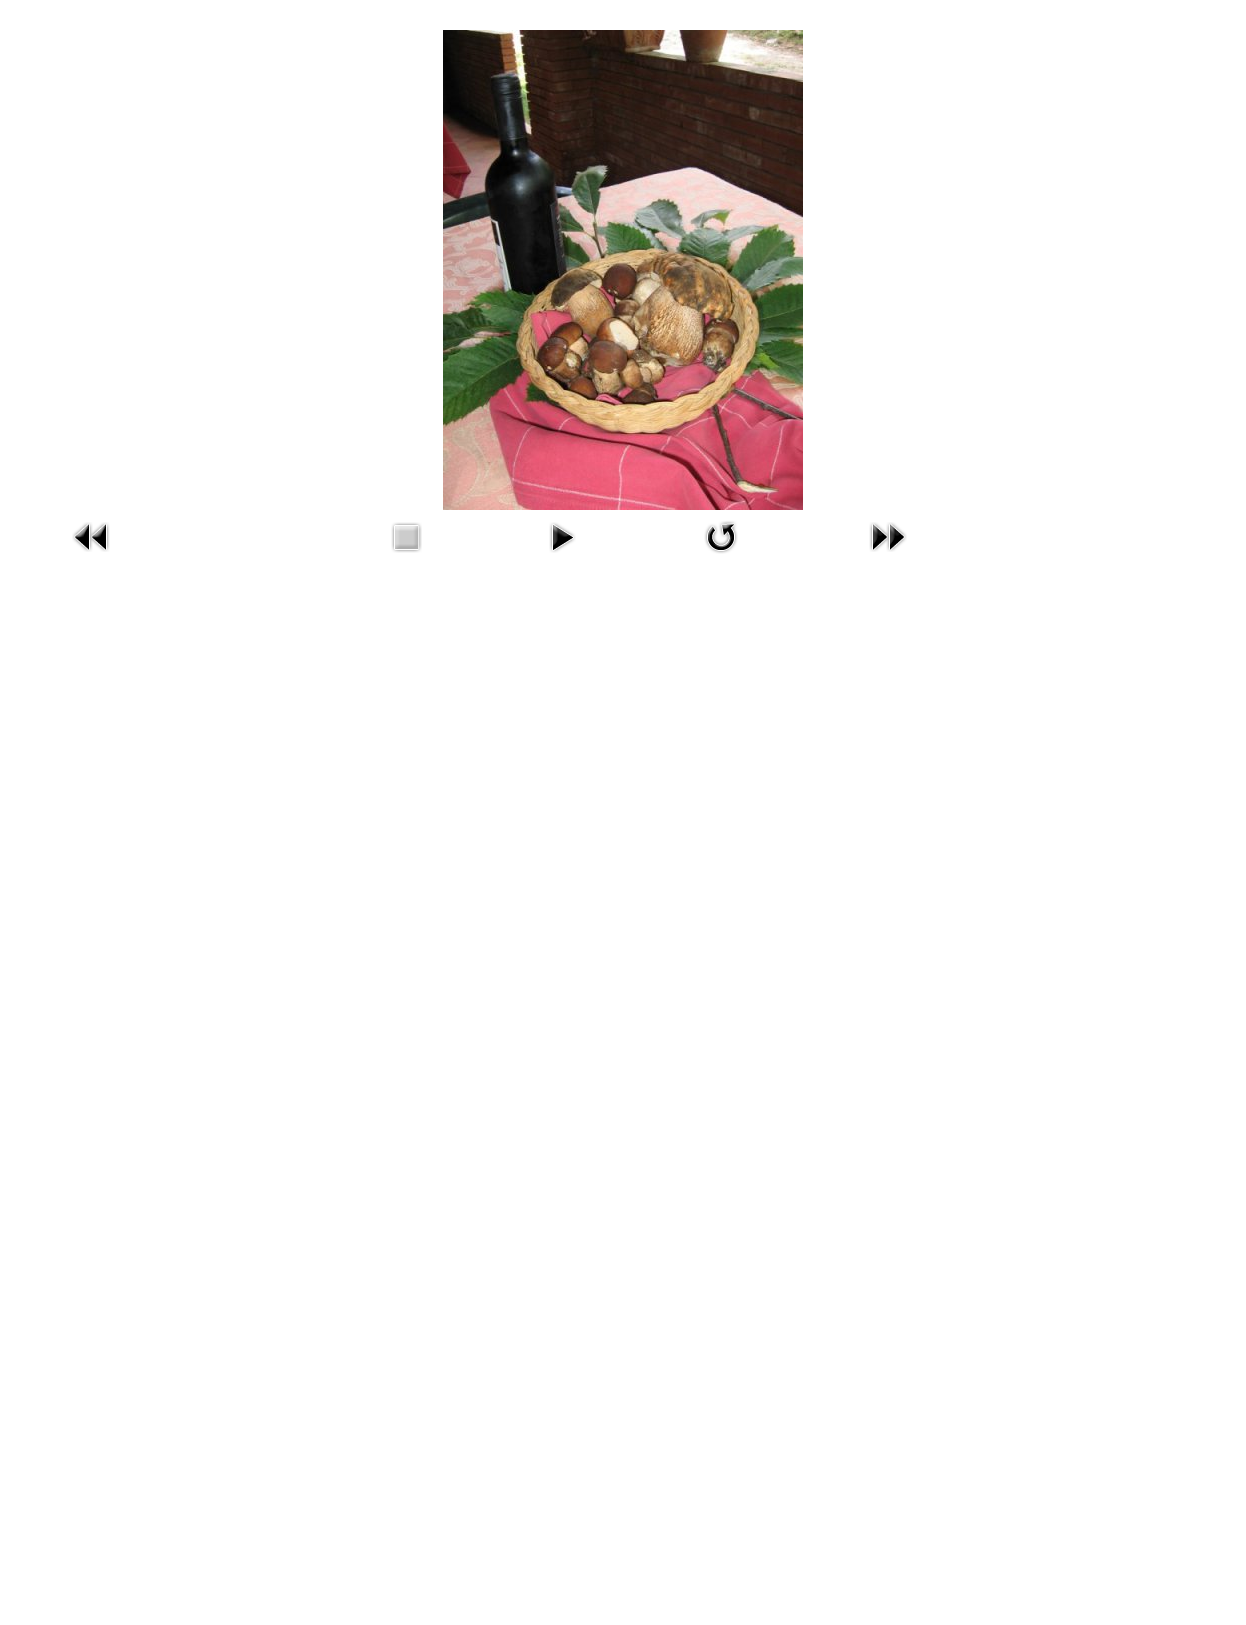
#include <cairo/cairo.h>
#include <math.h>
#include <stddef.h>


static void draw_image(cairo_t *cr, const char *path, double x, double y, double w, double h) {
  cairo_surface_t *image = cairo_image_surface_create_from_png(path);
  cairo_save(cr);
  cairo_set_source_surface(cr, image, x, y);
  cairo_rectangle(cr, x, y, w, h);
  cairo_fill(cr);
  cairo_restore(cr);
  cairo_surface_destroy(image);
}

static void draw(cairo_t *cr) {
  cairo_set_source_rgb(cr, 1, 1, 1);
  cairo_paint(cr);
  draw_image(cr, "images/1.png", 443, 30, 360, 480);
  draw_image(cr, "images/2.png", 72, 522, 38, 30);
  draw_image(cr, "images/3.png", 391, 522, 31, 31);
  draw_image(cr, "images/4.png", 549, 522, 27, 31);
  draw_image(cr, "images/5.png", 704, 520, 34, 34);
  draw_image(cr, "images/6.png", 869, 522, 38, 30);
}

int main(void) {
  cairo_surface_t *surface = cairo_image_surface_create(CAIRO_FORMAT_RGB24, 1246, 1625);
  cairo_t *cr = cairo_create(surface);
  cairo_font_options_t *options = cairo_font_options_create();
  cairo_font_options_set_hint_metrics(options, CAIRO_HINT_METRICS_OFF);
  cairo_font_options_set_hint_style(options, CAIRO_HINT_STYLE_NONE);
  cairo_set_font_options(cr, options);
  cairo_set_miter_limit(cr, 4);
  draw(cr);
  cairo_surface_write_to_png(surface, "out.png");
  cairo_font_options_destroy(options);
  cairo_destroy(cr);
  cairo_surface_destroy(surface);
  return 0;
}
